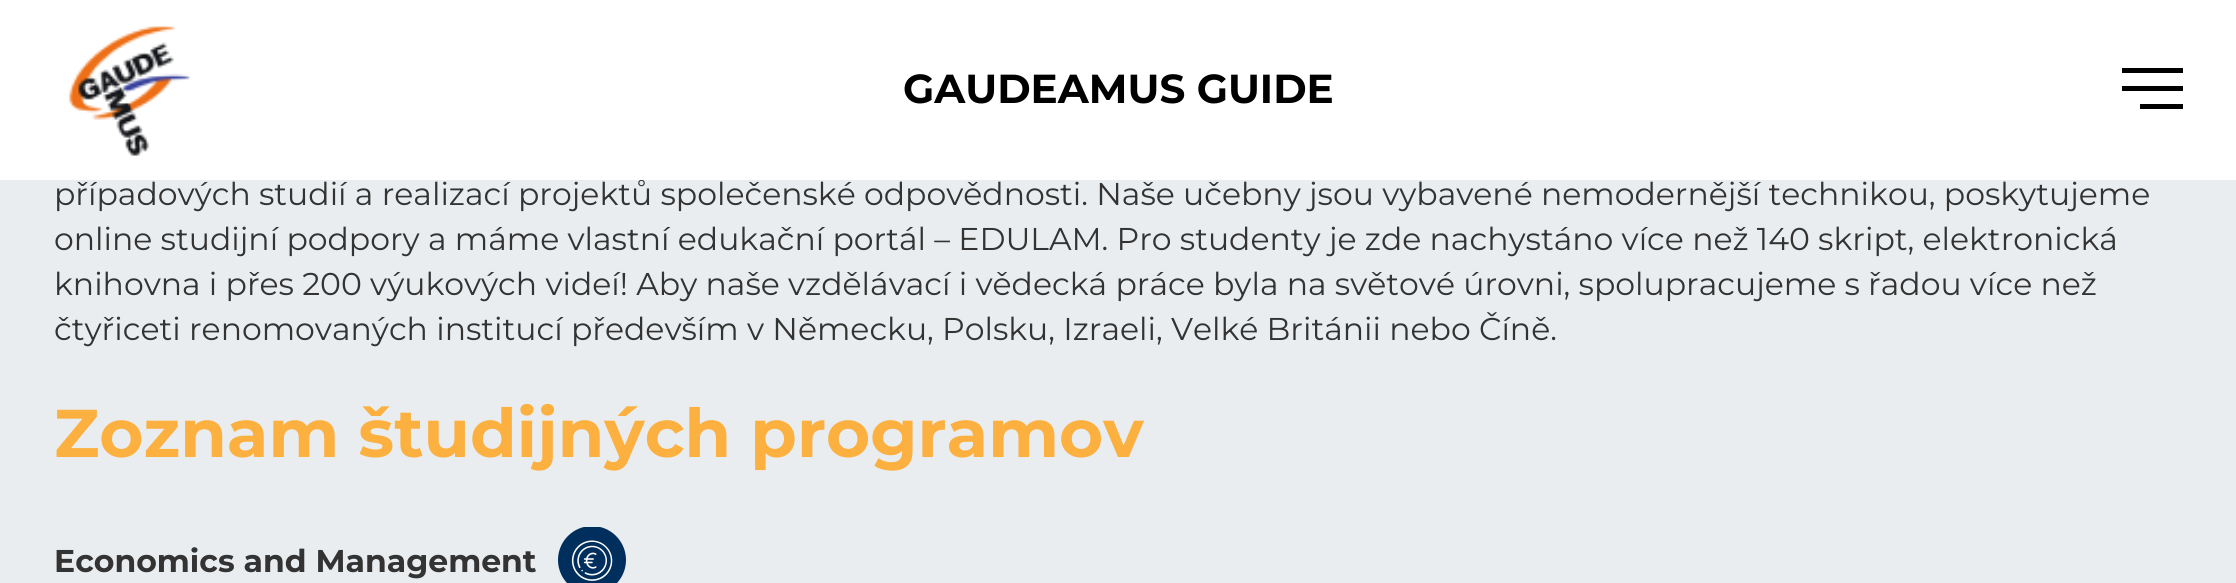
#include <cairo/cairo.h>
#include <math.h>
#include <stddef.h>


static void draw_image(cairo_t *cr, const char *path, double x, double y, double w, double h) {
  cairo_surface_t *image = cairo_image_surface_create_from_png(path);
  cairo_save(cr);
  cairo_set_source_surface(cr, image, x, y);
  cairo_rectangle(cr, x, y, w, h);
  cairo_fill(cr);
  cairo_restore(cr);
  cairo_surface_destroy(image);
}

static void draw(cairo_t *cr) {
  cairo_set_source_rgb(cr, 234 / 255.0, 237 / 255.0, 239 / 255.0);
  cairo_paint(cr);
  draw_image(cr, "images/2.png", 558, 527, 68, 56);
  cairo_select_font_face(cr, "Montserrat Thin", CAIRO_FONT_SLANT_NORMAL, CAIRO_FONT_WEIGHT_NORMAL);
  cairo_set_font_size(cr, 31.5);
  cairo_set_source_rgb(cr, 51 / 255.0, 51 / 255.0, 51 / 255.0);
  cairo_move_to(cr, 54, 205);
  cairo_show_text(cr, "případových studií a realizací projektů společenské odpovědnosti. Naše učebny jsou vybavené nemodernější technikou, poskytujeme");
  cairo_set_source_rgb(cr, 1, 1, 1);
  cairo_rectangle(cr, 0, 0, 2236, 180);
  cairo_fill(cr);
  cairo_set_source_rgb(cr, 0, 0, 0);
  cairo_rectangle(cr, 2140, 104, 43, 5);
  cairo_fill(cr);
  cairo_rectangle(cr, 2122, 86, 61, 5);
  cairo_fill(cr);
  cairo_rectangle(cr, 2122, 68, 61, 5);
  cairo_fill(cr);
  cairo_select_font_face(cr, "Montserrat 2 Thin", CAIRO_FONT_SLANT_NORMAL, CAIRO_FONT_WEIGHT_NORMAL);
  cairo_set_font_size(cr, 40.5);
  cairo_move_to(cr, 903, 103);
  cairo_show_text(cr, "GAUDEAMUS GUIDE");
  draw_image(cr, "images/1.png", 69, 25, 121, 131);
  cairo_select_font_face(cr, "Montserrat Thin", CAIRO_FONT_SLANT_NORMAL, CAIRO_FONT_WEIGHT_NORMAL);
  cairo_set_font_size(cr, 31.5);
  cairo_set_source_rgb(cr, 51 / 255.0, 51 / 255.0, 51 / 255.0);
  cairo_move_to(cr, 54, 250);
  cairo_show_text(cr, "online studijní podpory a máme vlastní edukační portál – EDULAM. Pro studenty je zde nachystáno více než 140 skript, elektronická");
  cairo_move_to(cr, 54, 295);
  cairo_show_text(cr, "knihovna i přes 200 výukových videí! Aby naše vzdělávací i vědecká práce byla na světové úrovni, spolupracujeme s řadou více než");
  cairo_move_to(cr, 54, 340);
  cairo_show_text(cr, "čtyřiceti renomovaných institucí především v Německu, Polsku, Izraeli, Velké Británii nebo Číně.");
  cairo_select_font_face(cr, "Montserrat 2 Thin", CAIRO_FONT_SLANT_NORMAL, CAIRO_FONT_WEIGHT_NORMAL);
  cairo_set_font_size(cr, 67.5);
  cairo_set_source_rgb(cr, 252 / 255.0, 176 / 255.0, 64 / 255.0);
  cairo_move_to(cr, 54, 457);
  cairo_show_text(cr, "Zoznam študijných programov");
  cairo_set_font_size(cr, 31.5);
  cairo_set_source_rgb(cr, 51 / 255.0, 51 / 255.0, 51 / 255.0);
  cairo_move_to(cr, 54, 572);
  cairo_show_text(cr, "Economics and Management");
}

int main(void) {
  cairo_surface_t *surface = cairo_image_surface_create(CAIRO_FORMAT_RGB24, 2236, 583);
  cairo_t *cr = cairo_create(surface);
  cairo_font_options_t *options = cairo_font_options_create();
  cairo_font_options_set_hint_metrics(options, CAIRO_HINT_METRICS_OFF);
  cairo_font_options_set_hint_style(options, CAIRO_HINT_STYLE_NONE);
  cairo_set_font_options(cr, options);
  cairo_set_miter_limit(cr, 4);
  draw(cr);
  cairo_surface_write_to_png(surface, "out.png");
  cairo_font_options_destroy(options);
  cairo_destroy(cr);
  cairo_surface_destroy(surface);
  return 0;
}
